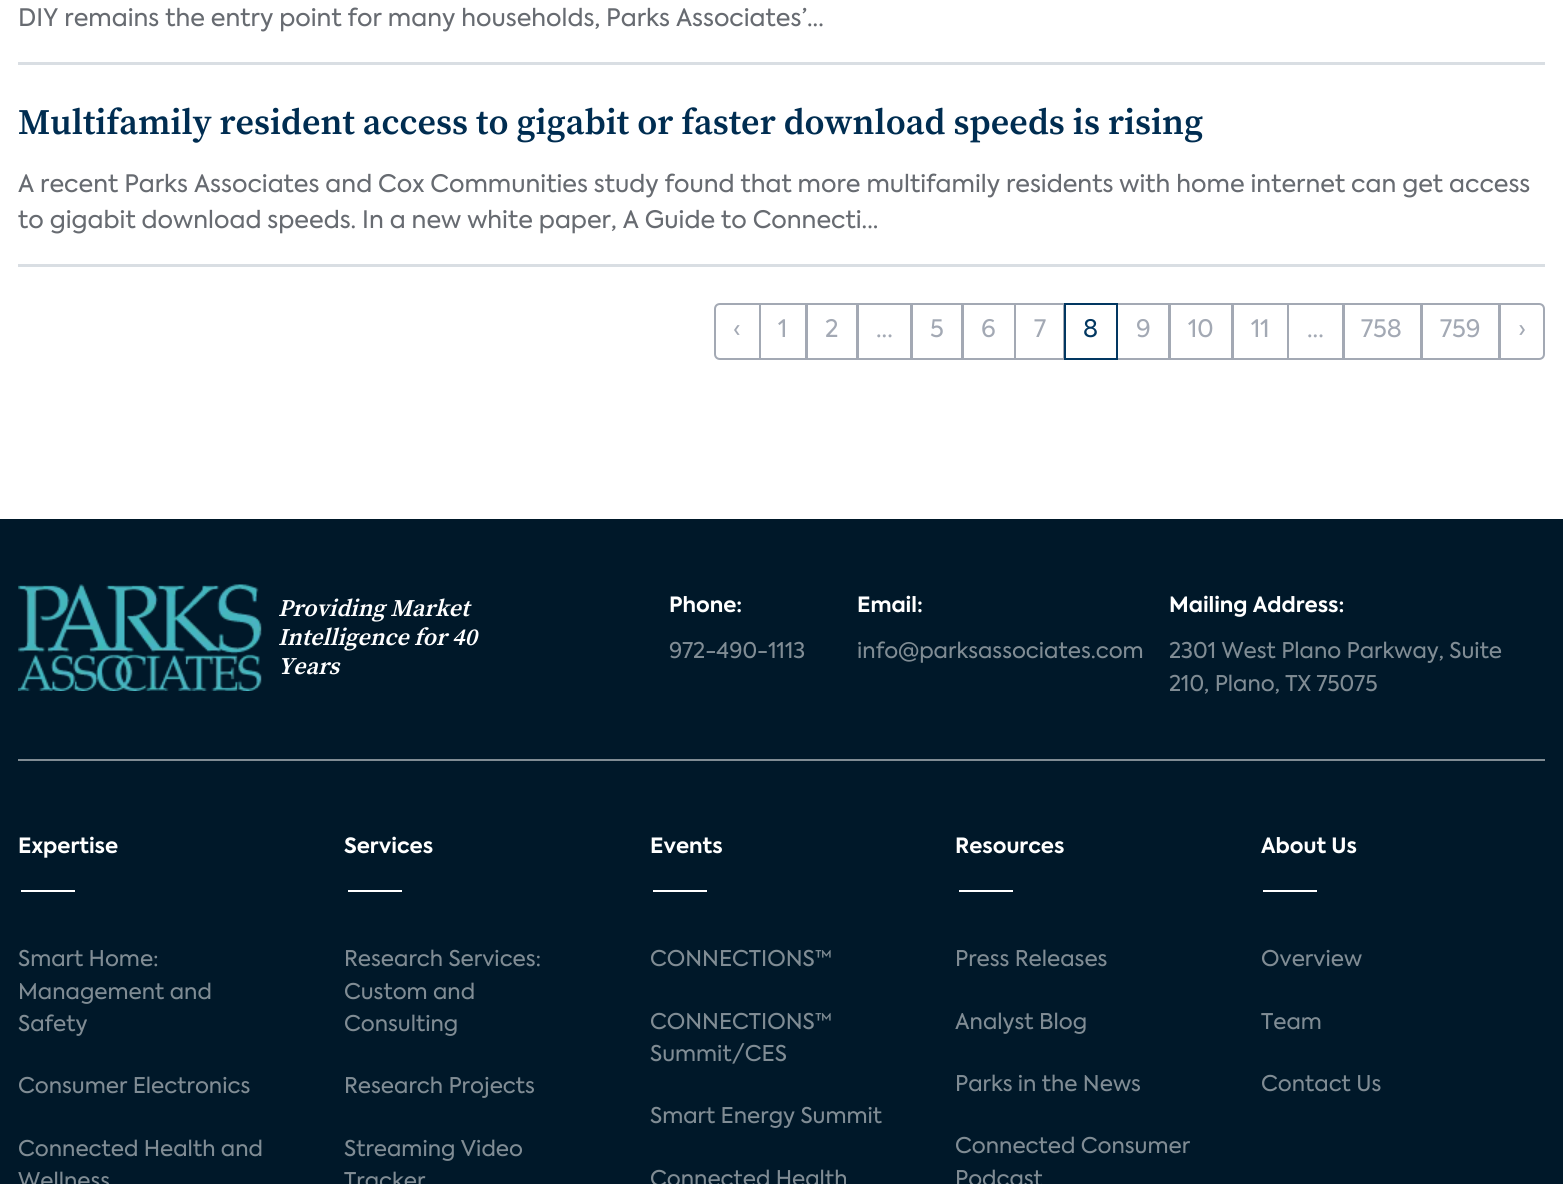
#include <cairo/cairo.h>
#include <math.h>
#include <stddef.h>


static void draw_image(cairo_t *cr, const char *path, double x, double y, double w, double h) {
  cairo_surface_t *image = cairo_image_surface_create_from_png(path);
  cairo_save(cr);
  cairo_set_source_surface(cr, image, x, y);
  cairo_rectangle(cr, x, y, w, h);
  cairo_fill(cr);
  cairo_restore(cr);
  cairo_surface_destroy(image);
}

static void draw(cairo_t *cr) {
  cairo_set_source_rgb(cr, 1, 1, 1);
  cairo_paint(cr);
  cairo_set_source_rgb(cr, 217 / 255.0, 222 / 255.0, 227 / 255.0);
  cairo_rectangle(cr, 18, 62, 1527, 3);
  cairo_fill(cr);
  cairo_rectangle(cr, 18, 264, 1527, 3);
  cairo_fill(cr);
  cairo_new_path(cr);
  cairo_move_to(cr, 720, 304);
  cairo_line_to(cr, 760, 304);
  cairo_line_to(cr, 760, 359);
  cairo_line_to(cr, 720, 359);
  cairo_curve_to(cr, 717, 359, 715, 357, 715, 354);
  cairo_line_to(cr, 715, 309);
  cairo_curve_to(cr, 715, 306, 717, 304, 720, 304);
  cairo_close_path(cr);
  cairo_set_source_rgb(cr, 163 / 255.0, 169 / 255.0, 180 / 255.0);
  cairo_stroke(cr);
  cairo_rectangle(cr, 760, 304, 46, 55);
  cairo_stroke(cr);
  cairo_rectangle(cr, 807, 304, 50, 55);
  cairo_stroke(cr);
  cairo_rectangle(cr, 858, 304, 53, 55);
  cairo_stroke(cr);
  cairo_rectangle(cr, 912, 304, 50, 55);
  cairo_stroke(cr);
  cairo_rectangle(cr, 963, 304, 52, 55);
  cairo_stroke(cr);
  cairo_rectangle(cr, 1015, 304, 49, 55);
  cairo_stroke(cr);
  cairo_rectangle(cr, 1117, 304, 52, 55);
  cairo_stroke(cr);
  cairo_rectangle(cr, 1065, 304, 52, 55);
  cairo_set_source_rgb(cr, 2 / 255.0, 55 / 255.0, 97 / 255.0);
  cairo_stroke(cr);
  cairo_rectangle(cr, 1170, 304, 62, 55);
  cairo_set_source_rgb(cr, 163 / 255.0, 169 / 255.0, 180 / 255.0);
  cairo_stroke(cr);
  cairo_rectangle(cr, 1233, 304, 55, 55);
  cairo_stroke(cr);
  cairo_rectangle(cr, 1288, 304, 55, 55);
  cairo_stroke(cr);
  cairo_rectangle(cr, 1344, 304, 77, 55);
  cairo_stroke(cr);
  cairo_rectangle(cr, 1422, 304, 77, 55);
  cairo_stroke(cr);
  cairo_set_source_rgb(cr, 1, 1, 1);
  cairo_new_path(cr);
  cairo_move_to(cr, 1500, 304);
  cairo_line_to(cr, 1539, 304);
  cairo_curve_to(cr, 1542, 304, 1544, 306, 1544, 309);
  cairo_line_to(cr, 1544, 354);
  cairo_curve_to(cr, 1544, 357, 1542, 359, 1539, 359);
  cairo_line_to(cr, 1500, 359);
  cairo_close_path(cr);
  cairo_fill_preserve(cr);
  cairo_set_source_rgb(cr, 163 / 255.0, 169 / 255.0, 180 / 255.0);
  cairo_stroke(cr);
  cairo_set_source_rgb(cr, 0, 24 / 255.0, 41 / 255.0);
  cairo_rectangle(cr, 0, 519, 1563, 665);
  cairo_fill(cr);
  cairo_set_source_rgb(cr, 128 / 255.0, 140 / 255.0, 148 / 255.0);
  cairo_rectangle(cr, 18, 759, 1527, 2);
  cairo_fill(cr);
  draw_image(cr, "images/1.png", 18, 584, 244, 107);
  cairo_set_source_rgb(cr, 1, 1, 1);
  cairo_rectangle(cr, 21, 890, 54, 2);
  cairo_fill(cr);
  cairo_rectangle(cr, 348, 890, 54, 2);
  cairo_fill(cr);
  cairo_rectangle(cr, 653, 890, 54, 2);
  cairo_fill(cr);
  cairo_rectangle(cr, 959, 890, 54, 2);
  cairo_fill(cr);
  cairo_rectangle(cr, 1263, 890, 54, 2);
  cairo_fill(cr);
  cairo_select_font_face(cr, "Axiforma", CAIRO_FONT_SLANT_NORMAL, CAIRO_FONT_WEIGHT_NORMAL);
  cairo_set_font_size(cr, 24);
  cairo_set_source_rgb(cr, 103 / 255.0, 107 / 255.0, 113 / 255.0);
  cairo_move_to(cr, 18, 26);
  cairo_show_text(cr, "DIY remains the entry point for many households, Parks Associates’...");
  cairo_select_font_face(cr, "Source Serif Pro SemiBold", CAIRO_FONT_SLANT_NORMAL, CAIRO_FONT_WEIGHT_NORMAL);
  cairo_set_font_size(cr, 36);
  cairo_set_source_rgb(cr, 0, 45 / 255.0, 81 / 255.0);
  cairo_move_to(cr, 18, 134);
  cairo_show_text(cr, "Multifamily resident access to gigabit or faster download speeds is rising");
  cairo_select_font_face(cr, "Axiforma", CAIRO_FONT_SLANT_NORMAL, CAIRO_FONT_WEIGHT_NORMAL);
  cairo_set_font_size(cr, 24);
  cairo_set_source_rgb(cr, 103 / 255.0, 107 / 255.0, 113 / 255.0);
  cairo_move_to(cr, 18, 192);
  cairo_show_text(cr, "A recent Parks Associates and Cox Communities study found that more multifamily residents with home internet can get access");
  cairo_move_to(cr, 18, 228);
  cairo_show_text(cr, "to gigabit download speeds. In a new white paper, A Guide to Connecti...");
  cairo_set_source_rgb(cr, 163 / 255.0, 169 / 255.0, 180 / 255.0);
  cairo_move_to(cr, 733, 337);
  cairo_show_text(cr, "‹");
  cairo_move_to(cr, 778, 337);
  cairo_show_text(cr, "1");
  cairo_move_to(cr, 825, 337);
  cairo_show_text(cr, "2");
  cairo_move_to(cr, 930, 337);
  cairo_show_text(cr, "5");
  cairo_move_to(cr, 981, 337);
  cairo_show_text(cr, "6");
  cairo_move_to(cr, 1034, 337);
  cairo_show_text(cr, "7");
  cairo_set_source_rgb(cr, 2 / 255.0, 55 / 255.0, 97 / 255.0);
  cairo_move_to(cr, 1083, 337);
  cairo_show_text(cr, "8");
  cairo_set_source_rgb(cr, 163 / 255.0, 169 / 255.0, 180 / 255.0);
  cairo_move_to(cr, 1136, 337);
  cairo_show_text(cr, "9");
  cairo_move_to(cr, 1188, 337);
  cairo_show_text(cr, "10");
  cairo_move_to(cr, 1251, 337);
  cairo_show_text(cr, "11");
  cairo_move_to(cr, 1361, 337);
  cairo_show_text(cr, "758");
  cairo_move_to(cr, 1440, 337);
  cairo_show_text(cr, "759");
  cairo_move_to(cr, 1518, 337);
  cairo_show_text(cr, "›");
  cairo_move_to(cr, 876, 337);
  cairo_show_text(cr, "...");
  cairo_move_to(cr, 1307, 337);
  cairo_show_text(cr, "...");
  cairo_select_font_face(cr, "Source Serif Pro SemiBold", CAIRO_FONT_SLANT_ITALIC, CAIRO_FONT_WEIGHT_NORMAL);
  cairo_set_source_rgb(cr, 1, 1, 1);
  cairo_move_to(cr, 278, 616);
  cairo_show_text(cr, "Providing Market");
  cairo_move_to(cr, 278, 645);
  cairo_show_text(cr, "Intelligence for 40");
  cairo_move_to(cr, 278, 674);
  cairo_show_text(cr, "Years");
  cairo_select_font_face(cr, "Axiforma", CAIRO_FONT_SLANT_NORMAL, CAIRO_FONT_WEIGHT_BOLD);
  cairo_set_font_size(cr, 21);
  cairo_move_to(cr, 669, 612);
  cairo_show_text(cr, "Phone:");
  cairo_select_font_face(cr, "Axiforma", CAIRO_FONT_SLANT_NORMAL, CAIRO_FONT_WEIGHT_NORMAL);
  cairo_set_font_size(cr, 21.6);
  cairo_set_source_rgb(cr, 128 / 255.0, 140 / 255.0, 148 / 255.0);
  cairo_move_to(cr, 669, 658);
  cairo_show_text(cr, "972-490-1113");
  cairo_select_font_face(cr, "Axiforma", CAIRO_FONT_SLANT_NORMAL, CAIRO_FONT_WEIGHT_BOLD);
  cairo_set_font_size(cr, 21);
  cairo_set_source_rgb(cr, 1, 1, 1);
  cairo_move_to(cr, 857, 612);
  cairo_show_text(cr, "Email:");
  cairo_select_font_face(cr, "Axiforma", CAIRO_FONT_SLANT_NORMAL, CAIRO_FONT_WEIGHT_NORMAL);
  cairo_set_font_size(cr, 21.6);
  cairo_set_source_rgb(cr, 128 / 255.0, 140 / 255.0, 148 / 255.0);
  cairo_move_to(cr, 857, 658);
  cairo_show_text(cr, "info@parksassociates.com");
  cairo_select_font_face(cr, "Axiforma", CAIRO_FONT_SLANT_NORMAL, CAIRO_FONT_WEIGHT_BOLD);
  cairo_set_font_size(cr, 21);
  cairo_set_source_rgb(cr, 1, 1, 1);
  cairo_move_to(cr, 1169, 612);
  cairo_show_text(cr, "Mailing Address:");
  cairo_select_font_face(cr, "Axiforma", CAIRO_FONT_SLANT_NORMAL, CAIRO_FONT_WEIGHT_NORMAL);
  cairo_set_font_size(cr, 21.6);
  cairo_set_source_rgb(cr, 128 / 255.0, 140 / 255.0, 148 / 255.0);
  cairo_move_to(cr, 1169, 658);
  cairo_show_text(cr, "2301 West Plano Parkway, Suite");
  cairo_move_to(cr, 1169, 691);
  cairo_show_text(cr, "210, Plano, TX 75075");
  cairo_select_font_face(cr, "Axiforma", CAIRO_FONT_SLANT_NORMAL, CAIRO_FONT_WEIGHT_BOLD);
  cairo_set_font_size(cr, 21);
  cairo_set_source_rgb(cr, 1, 1, 1);
  cairo_move_to(cr, 18, 853);
  cairo_show_text(cr, "Expertise");
  cairo_select_font_face(cr, "Axiforma", CAIRO_FONT_SLANT_NORMAL, CAIRO_FONT_WEIGHT_NORMAL);
  cairo_set_font_size(cr, 21.6);
  cairo_set_source_rgb(cr, 128 / 255.0, 140 / 255.0, 148 / 255.0);
  cairo_move_to(cr, 18, 966);
  cairo_show_text(cr, "Smart Home:");
  cairo_move_to(cr, 18, 999);
  cairo_show_text(cr, "Management and");
  cairo_move_to(cr, 18, 1031);
  cairo_show_text(cr, "Safety");
  cairo_move_to(cr, 18, 1093);
  cairo_show_text(cr, "Consumer Electronics");
  cairo_move_to(cr, 18, 1156);
  cairo_show_text(cr, "Connected Health and");
  cairo_move_to(cr, 18, 1188);
  cairo_show_text(cr, "Wellness");
  cairo_select_font_face(cr, "Axiforma", CAIRO_FONT_SLANT_NORMAL, CAIRO_FONT_WEIGHT_BOLD);
  cairo_set_font_size(cr, 21);
  cairo_set_source_rgb(cr, 1, 1, 1);
  cairo_move_to(cr, 344, 853);
  cairo_show_text(cr, "Services");
  cairo_select_font_face(cr, "Axiforma", CAIRO_FONT_SLANT_NORMAL, CAIRO_FONT_WEIGHT_NORMAL);
  cairo_set_font_size(cr, 21.6);
  cairo_set_source_rgb(cr, 128 / 255.0, 140 / 255.0, 148 / 255.0);
  cairo_move_to(cr, 344, 966);
  cairo_show_text(cr, "Research Services:");
  cairo_move_to(cr, 344, 999);
  cairo_show_text(cr, "Custom and");
  cairo_move_to(cr, 344, 1031);
  cairo_show_text(cr, "Consulting");
  cairo_move_to(cr, 344, 1093);
  cairo_show_text(cr, "Research Projects");
  cairo_move_to(cr, 344, 1156);
  cairo_show_text(cr, "Streaming Video");
  cairo_move_to(cr, 344, 1188);
  cairo_show_text(cr, "Tracker");
  cairo_select_font_face(cr, "Axiforma", CAIRO_FONT_SLANT_NORMAL, CAIRO_FONT_WEIGHT_BOLD);
  cairo_set_font_size(cr, 21);
  cairo_set_source_rgb(cr, 1, 1, 1);
  cairo_move_to(cr, 650, 853);
  cairo_show_text(cr, "Events");
  cairo_select_font_face(cr, "Axiforma", CAIRO_FONT_SLANT_NORMAL, CAIRO_FONT_WEIGHT_NORMAL);
  cairo_set_font_size(cr, 21.6);
  cairo_set_source_rgb(cr, 128 / 255.0, 140 / 255.0, 148 / 255.0);
  cairo_move_to(cr, 650, 966);
  cairo_show_text(cr, "CONNECTIONS™");
  cairo_move_to(cr, 650, 1029);
  cairo_show_text(cr, "CONNECTIONS™");
  cairo_move_to(cr, 650, 1061);
  cairo_show_text(cr, "Summit/CES");
  cairo_move_to(cr, 650, 1123);
  cairo_show_text(cr, "Smart Energy Summit");
  cairo_move_to(cr, 650, 1186);
  cairo_show_text(cr, "Connected Health");
  cairo_select_font_face(cr, "Axiforma", CAIRO_FONT_SLANT_NORMAL, CAIRO_FONT_WEIGHT_BOLD);
  cairo_set_font_size(cr, 21);
  cairo_set_source_rgb(cr, 1, 1, 1);
  cairo_move_to(cr, 955, 853);
  cairo_show_text(cr, "Resources");
  cairo_select_font_face(cr, "Axiforma", CAIRO_FONT_SLANT_NORMAL, CAIRO_FONT_WEIGHT_NORMAL);
  cairo_set_font_size(cr, 21.6);
  cairo_set_source_rgb(cr, 128 / 255.0, 140 / 255.0, 148 / 255.0);
  cairo_move_to(cr, 955, 966);
  cairo_show_text(cr, "Press Releases");
  cairo_move_to(cr, 955, 1029);
  cairo_show_text(cr, "Analyst Blog");
  cairo_move_to(cr, 955, 1091);
  cairo_show_text(cr, "Parks in the News");
  cairo_move_to(cr, 955, 1153);
  cairo_show_text(cr, "Connected Consumer");
  cairo_move_to(cr, 955, 1186);
  cairo_show_text(cr, "Podcast");
  cairo_select_font_face(cr, "Axiforma", CAIRO_FONT_SLANT_NORMAL, CAIRO_FONT_WEIGHT_BOLD);
  cairo_set_font_size(cr, 21);
  cairo_set_source_rgb(cr, 1, 1, 1);
  cairo_move_to(cr, 1261, 853);
  cairo_show_text(cr, "About Us");
  cairo_select_font_face(cr, "Axiforma", CAIRO_FONT_SLANT_NORMAL, CAIRO_FONT_WEIGHT_NORMAL);
  cairo_set_font_size(cr, 21.6);
  cairo_set_source_rgb(cr, 128 / 255.0, 140 / 255.0, 148 / 255.0);
  cairo_move_to(cr, 1261, 966);
  cairo_show_text(cr, "Overview");
  cairo_move_to(cr, 1261, 1029);
  cairo_show_text(cr, "Team");
  cairo_move_to(cr, 1261, 1091);
  cairo_show_text(cr, "Contact Us");
}

int main(void) {
  cairo_surface_t *surface = cairo_image_surface_create(CAIRO_FORMAT_RGB24, 1563, 1184);
  cairo_t *cr = cairo_create(surface);
  cairo_font_options_t *options = cairo_font_options_create();
  cairo_font_options_set_hint_metrics(options, CAIRO_HINT_METRICS_OFF);
  cairo_font_options_set_hint_style(options, CAIRO_HINT_STYLE_NONE);
  cairo_set_font_options(cr, options);
  cairo_set_miter_limit(cr, 4);
  draw(cr);
  cairo_surface_write_to_png(surface, "out.png");
  cairo_font_options_destroy(options);
  cairo_destroy(cr);
  cairo_surface_destroy(surface);
  return 0;
}
